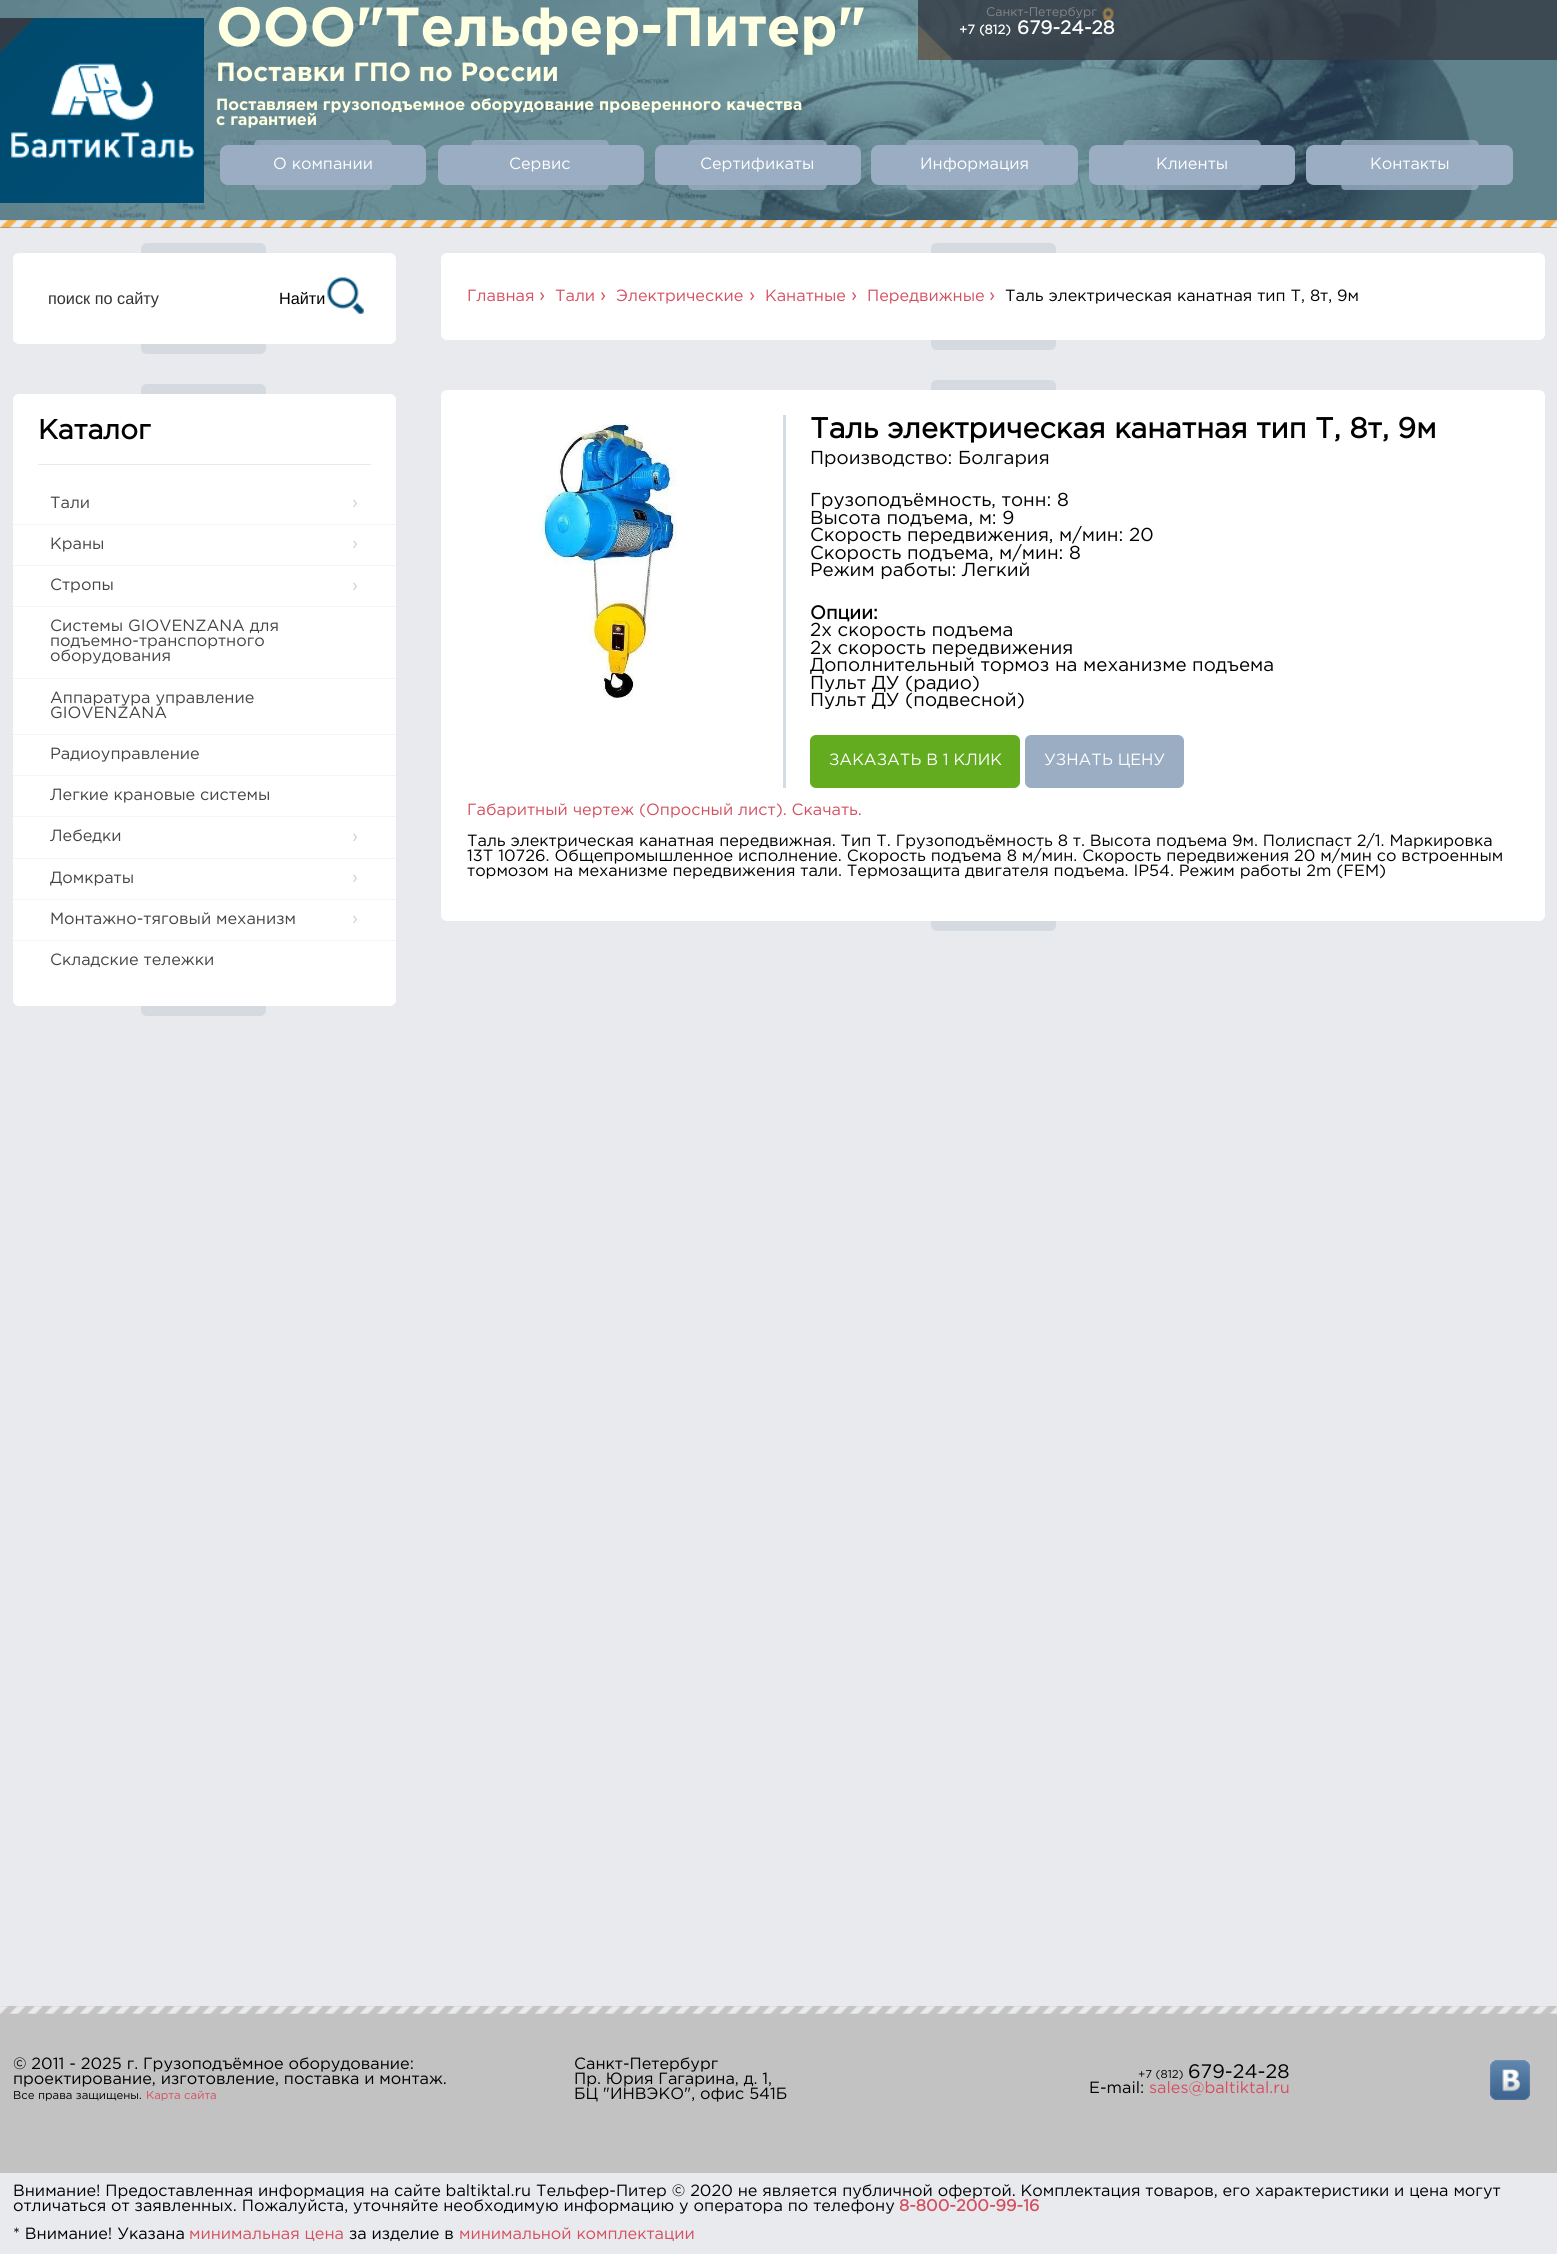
#include <cairo/cairo.h>
#include <math.h>
#include <stddef.h>


static void rounded_rect(cairo_t *cr, double x, double y, double w, double h, double r) {
  cairo_new_sub_path(cr);
  cairo_arc(cr, x + w - r, y + h - r, r, 0, M_PI / 2);
  cairo_arc(cr, x + r, y + h - r, r, M_PI / 2, M_PI);
  cairo_arc(cr, x + r, y + r, r, M_PI, 1.5 * M_PI);
  cairo_arc(cr, x + w - r, y + r, r, 1.5 * M_PI, 2 * M_PI);
  cairo_close_path(cr);
}

static void draw_image(cairo_t *cr, const char *path, double x, double y, double w, double h) {
  cairo_surface_t *image = cairo_image_surface_create_from_png(path);
  cairo_save(cr);
  cairo_set_source_surface(cr, image, x, y);
  cairo_rectangle(cr, x, y, w, h);
  cairo_fill(cr);
  cairo_restore(cr);
  cairo_surface_destroy(image);
}

static void draw(cairo_t *cr) {
  cairo_pattern_t *gradient;
  cairo_set_source_rgb(cr, 233 / 255.0, 234 / 255.0, 237 / 255.0);
  cairo_paint(cr);
  cairo_set_source_rgb(cr, 107 / 255.0, 130 / 255.0, 138 / 255.0);
  cairo_rectangle(cr, 0, 227, 1557, 1);
  cairo_fill(cr);
  draw_image(cr, "images/1.png", 0, 220, 1557, 8);
  draw_image(cr, "images/2.png", 0, 0, 1557, 220);
  gradient = cairo_pattern_create_linear(4.7, 13, 199, 207);
  cairo_pattern_add_color_stop_rgba(gradient, 0, 52 / 255.0, 59 / 255.0, 68 / 255.0, 1);
  cairo_pattern_add_color_stop_rgba(gradient, 0.09, 50 / 255.0, 60 / 255.0, 71 / 255.0, 1);
  cairo_pattern_add_color_stop_rgba(gradient, 0.09, 0, 74 / 255.0, 109 / 255.0, 1);
  cairo_pattern_add_color_stop_rgba(gradient, 0.97, 0, 77 / 255.0, 117 / 255.0, 1);
  cairo_pattern_add_color_stop_rgba(gradient, 1, 0, 77 / 255.0, 117 / 255.0, 1);
  cairo_set_source(cr, gradient);
  cairo_pattern_destroy(gradient);
  cairo_rectangle(cr, 0, 18, 204, 185);
  cairo_fill(cr);
  draw_image(cr, "images/3.png", 11, 63, 183, 95);
  draw_image(cr, "images/4.png", 1102, 7, 12, 13);
  cairo_set_source_rgba(cr, 154 / 255.0, 173 / 255.0, 194 / 255.0, 0.8);
  cairo_new_path(cr);
  cairo_move_to(cr, 258, 140);
  cairo_line_to(cr, 387, 140);
  cairo_curve_to(cr, 390, 140, 392, 143, 392, 146);
  cairo_line_to(cr, 392, 184);
  cairo_curve_to(cr, 392, 187, 390, 190, 387, 190);
  cairo_line_to(cr, 258, 190);
  cairo_curve_to(cr, 256, 190, 254, 187, 254, 184);
  cairo_line_to(cr, 254, 146);
  cairo_curve_to(cr, 254, 143, 256, 140, 258, 140);
  cairo_close_path(cr);
  cairo_fill(cr);
  cairo_set_source_rgb(cr, 154 / 255.0, 173 / 255.0, 194 / 255.0);
  rounded_rect(cr, 220, 145, 206, 40, 8);
  cairo_fill(cr);
  cairo_set_source_rgba(cr, 154 / 255.0, 173 / 255.0, 194 / 255.0, 0.8);
  cairo_new_path(cr);
  cairo_move_to(cr, 475, 140);
  cairo_line_to(cr, 605, 140);
  cairo_curve_to(cr, 607, 140, 609, 143, 609, 146);
  cairo_line_to(cr, 609, 184);
  cairo_curve_to(cr, 609, 187, 607, 190, 605, 190);
  cairo_line_to(cr, 475, 190);
  cairo_curve_to(cr, 473, 190, 471, 187, 471, 184);
  cairo_line_to(cr, 471, 146);
  cairo_curve_to(cr, 471, 143, 473, 140, 475, 140);
  cairo_close_path(cr);
  cairo_fill(cr);
  cairo_set_source_rgb(cr, 154 / 255.0, 173 / 255.0, 194 / 255.0);
  rounded_rect(cr, 438, 145, 206, 40, 8);
  cairo_fill(cr);
  cairo_set_source_rgba(cr, 154 / 255.0, 173 / 255.0, 194 / 255.0, 0.8);
  cairo_new_path(cr);
  cairo_move_to(cr, 693, 140);
  cairo_line_to(cr, 822, 140);
  cairo_curve_to(cr, 825, 140, 827, 143, 827, 146);
  cairo_line_to(cr, 827, 184);
  cairo_curve_to(cr, 827, 187, 825, 190, 822, 190);
  cairo_line_to(cr, 693, 190);
  cairo_curve_to(cr, 690, 190, 688, 187, 688, 184);
  cairo_line_to(cr, 688, 146);
  cairo_curve_to(cr, 688, 143, 690, 140, 693, 140);
  cairo_close_path(cr);
  cairo_fill(cr);
  cairo_set_source_rgb(cr, 154 / 255.0, 173 / 255.0, 194 / 255.0);
  rounded_rect(cr, 655, 145, 206, 40, 8);
  cairo_fill(cr);
  cairo_set_source_rgba(cr, 154 / 255.0, 173 / 255.0, 194 / 255.0, 0.8);
  cairo_new_path(cr);
  cairo_move_to(cr, 910, 140);
  cairo_line_to(cr, 1040, 140);
  cairo_curve_to(cr, 1042, 140, 1044, 143, 1044, 146);
  cairo_line_to(cr, 1044, 184);
  cairo_curve_to(cr, 1044, 187, 1042, 190, 1040, 190);
  cairo_line_to(cr, 910, 190);
  cairo_curve_to(cr, 908, 190, 906, 187, 906, 184);
  cairo_line_to(cr, 906, 146);
  cairo_curve_to(cr, 906, 143, 908, 140, 910, 140);
  cairo_close_path(cr);
  cairo_fill(cr);
  cairo_set_source_rgb(cr, 154 / 255.0, 173 / 255.0, 194 / 255.0);
  rounded_rect(cr, 871, 145, 207, 40, 8);
  cairo_fill(cr);
  cairo_set_source_rgba(cr, 154 / 255.0, 173 / 255.0, 194 / 255.0, 0.8);
  cairo_new_path(cr);
  cairo_move_to(cr, 1128, 140);
  cairo_line_to(cr, 1257, 140);
  cairo_curve_to(cr, 1259, 140, 1261, 143, 1261, 146);
  cairo_line_to(cr, 1261, 184);
  cairo_curve_to(cr, 1261, 187, 1259, 190, 1257, 190);
  cairo_line_to(cr, 1128, 190);
  cairo_curve_to(cr, 1125, 190, 1123, 187, 1123, 184);
  cairo_line_to(cr, 1123, 146);
  cairo_curve_to(cr, 1123, 143, 1125, 140, 1128, 140);
  cairo_close_path(cr);
  cairo_fill(cr);
  cairo_set_source_rgb(cr, 154 / 255.0, 173 / 255.0, 194 / 255.0);
  rounded_rect(cr, 1089, 145, 206, 40, 8);
  cairo_fill(cr);
  cairo_set_source_rgba(cr, 154 / 255.0, 173 / 255.0, 194 / 255.0, 0.8);
  cairo_new_path(cr);
  cairo_move_to(cr, 1345, 140);
  cairo_line_to(cr, 1474, 140);
  cairo_curve_to(cr, 1477, 140, 1479, 143, 1479, 146);
  cairo_line_to(cr, 1479, 184);
  cairo_curve_to(cr, 1479, 187, 1477, 190, 1474, 190);
  cairo_line_to(cr, 1345, 190);
  cairo_curve_to(cr, 1342, 190, 1341, 187, 1341, 184);
  cairo_line_to(cr, 1341, 146);
  cairo_curve_to(cr, 1341, 143, 1342, 140, 1345, 140);
  cairo_close_path(cr);
  cairo_fill(cr);
  cairo_set_source_rgb(cr, 154 / 255.0, 173 / 255.0, 194 / 255.0);
  rounded_rect(cr, 1306, 145, 207, 40, 8);
  cairo_fill(cr);
  cairo_set_source_rgb(cr, 1, 1, 1);
  rounded_rect(cr, 13, 253, 383, 91, 6);
  cairo_fill(cr);
  cairo_set_source_rgb(cr, 213 / 255.0, 218 / 255.0, 225 / 255.0);
  cairo_new_path(cr);
  cairo_move_to(cr, 147, 243);
  cairo_line_to(cr, 260, 243);
  cairo_curve_to(cr, 263.5, 243, 266, 245.5, 266, 249);
  cairo_line_to(cr, 266, 253);
  cairo_line_to(cr, 141, 253);
  cairo_line_to(cr, 141, 249);
  cairo_curve_to(cr, 141, 245.5, 143.5, 243, 147, 243);
  cairo_close_path(cr);
  cairo_fill(cr);
  draw_image(cr, "images/5.png", 327, 277, 37, 37);
  cairo_new_path(cr);
  cairo_move_to(cr, 141, 344);
  cairo_line_to(cr, 266, 344);
  cairo_line_to(cr, 266, 348);
  cairo_curve_to(cr, 266, 351.5, 263.5, 354, 260, 354);
  cairo_line_to(cr, 147, 354);
  cairo_curve_to(cr, 143.5, 354, 141, 351.5, 141, 348);
  cairo_close_path(cr);
  cairo_fill(cr);
  cairo_set_source_rgb(cr, 1, 1, 1);
  rounded_rect(cr, 13, 394, 383, 612, 6);
  cairo_fill(cr);
  cairo_set_source_rgb(cr, 213 / 255.0, 218 / 255.0, 225 / 255.0);
  cairo_new_path(cr);
  cairo_move_to(cr, 147, 384);
  cairo_line_to(cr, 260, 384);
  cairo_curve_to(cr, 263.5, 384, 266, 386.5, 266, 390);
  cairo_line_to(cr, 266, 394);
  cairo_line_to(cr, 141, 394);
  cairo_line_to(cr, 141, 390);
  cairo_curve_to(cr, 141, 386.5, 143.5, 384, 147, 384);
  cairo_close_path(cr);
  cairo_fill(cr);
  cairo_set_source_rgb(cr, 233 / 255.0, 234 / 255.0, 237 / 255.0);
  cairo_rectangle(cr, 38, 464, 333, 1);
  cairo_fill(cr);
  cairo_set_source_rgb(cr, 244 / 255.0, 244 / 255.0, 244 / 255.0);
  cairo_rectangle(cr, 13, 524, 383, 1);
  cairo_fill(cr);
  cairo_rectangle(cr, 13, 565, 383, 1);
  cairo_fill(cr);
  cairo_rectangle(cr, 13, 606, 383, 1);
  cairo_fill(cr);
  cairo_rectangle(cr, 13, 678, 383, 1);
  cairo_fill(cr);
  cairo_rectangle(cr, 13, 734, 383, 1);
  cairo_fill(cr);
  cairo_rectangle(cr, 13, 775, 383, 1);
  cairo_fill(cr);
  cairo_rectangle(cr, 13, 816, 383, 1);
  cairo_fill(cr);
  cairo_rectangle(cr, 13, 858, 383, 1);
  cairo_fill(cr);
  cairo_rectangle(cr, 13, 899, 383, 1);
  cairo_fill(cr);
  cairo_rectangle(cr, 13, 940, 383, 1);
  cairo_fill(cr);
  cairo_set_source_rgb(cr, 213 / 255.0, 218 / 255.0, 225 / 255.0);
  cairo_new_path(cr);
  cairo_move_to(cr, 141, 1006);
  cairo_line_to(cr, 266, 1006);
  cairo_line_to(cr, 266, 1010);
  cairo_curve_to(cr, 266, 1013.5, 263.5, 1016, 260, 1016);
  cairo_line_to(cr, 147, 1016);
  cairo_curve_to(cr, 143.5, 1016, 141, 1013.5, 141, 1010);
  cairo_close_path(cr);
  cairo_fill(cr);
  cairo_set_source_rgb(cr, 1, 1, 1);
  rounded_rect(cr, 441, 253, 1104, 87, 6);
  cairo_fill(cr);
  cairo_set_source_rgb(cr, 213 / 255.0, 218 / 255.0, 225 / 255.0);
  cairo_new_path(cr);
  cairo_move_to(cr, 937, 243);
  cairo_line_to(cr, 1050, 243);
  cairo_curve_to(cr, 1053.5, 243, 1056, 245.5, 1056, 249);
  cairo_line_to(cr, 1056, 253);
  cairo_line_to(cr, 931, 253);
  cairo_line_to(cr, 931, 249);
  cairo_curve_to(cr, 931, 245.5, 933.5, 243, 937, 243);
  cairo_close_path(cr);
  cairo_fill(cr);
  cairo_new_path(cr);
  cairo_move_to(cr, 931, 340);
  cairo_line_to(cr, 1056, 340);
  cairo_line_to(cr, 1056, 344);
  cairo_curve_to(cr, 1056, 347.5, 1053.5, 350, 1050, 350);
  cairo_line_to(cr, 937, 350);
  cairo_curve_to(cr, 933.5, 350, 931, 347.5, 931, 344);
  cairo_close_path(cr);
  cairo_fill(cr);
  cairo_set_source_rgb(cr, 1, 1, 1);
  rounded_rect(cr, 441, 390, 1104, 531, 6);
  cairo_fill(cr);
  cairo_set_source_rgb(cr, 213 / 255.0, 218 / 255.0, 225 / 255.0);
  cairo_new_path(cr);
  cairo_move_to(cr, 937, 380);
  cairo_line_to(cr, 1050, 380);
  cairo_curve_to(cr, 1053.5, 380, 1056, 382.5, 1056, 386);
  cairo_line_to(cr, 1056, 390);
  cairo_line_to(cr, 931, 390);
  cairo_line_to(cr, 931, 386);
  cairo_curve_to(cr, 931, 382.5, 933.5, 380, 937, 380);
  cairo_close_path(cr);
  cairo_fill(cr);
  draw_image(cr, "images/6.png", 537, 423, 140, 278);
  cairo_set_source_rgb(cr, 211 / 255.0, 220 / 255.0, 227 / 255.0);
  cairo_rectangle(cr, 783, 415, 3, 373);
  cairo_fill(cr);
  cairo_set_source_rgb(cr, 99 / 255.0, 172 / 255.0, 32 / 255.0);
  rounded_rect(cr, 810, 735, 210, 53, 6);
  cairo_fill(cr);
  cairo_set_source_rgb(cr, 154 / 255.0, 173 / 255.0, 194 / 255.0);
  rounded_rect(cr, 1025, 735, 159, 53, 6);
  cairo_fill(cr);
  cairo_set_source_rgb(cr, 213 / 255.0, 218 / 255.0, 225 / 255.0);
  cairo_new_path(cr);
  cairo_move_to(cr, 931, 921);
  cairo_line_to(cr, 1056, 921);
  cairo_line_to(cr, 1056, 925);
  cairo_curve_to(cr, 1056, 928.5, 1053.5, 931, 1050, 931);
  cairo_line_to(cr, 937, 931);
  cairo_curve_to(cr, 933.5, 931, 931, 928.5, 931, 925);
  cairo_close_path(cr);
  cairo_fill(cr);
  cairo_set_source_rgb(cr, 195 / 255.0, 194 / 255.0, 194 / 255.0);
  cairo_rectangle(cr, 0, 2006, 1557, 167);
  cairo_fill(cr);
  draw_image(cr, "images/7.png", 0, 2006, 1557, 8);
  draw_image(cr, "images/8.png", 1490, 2060, 40, 40);
  cairo_select_font_face(cr, "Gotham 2", CAIRO_FONT_SLANT_NORMAL, CAIRO_FONT_WEIGHT_BOLD);
  cairo_set_font_size(cr, 55);
  cairo_set_source_rgb(cr, 1, 1, 225 / 255.0);
  cairo_move_to(cr, 216, 46);
  cairo_show_text(cr, "ООО\"Тельфер-Питер\"");
  cairo_set_font_size(cr, 26.25);
  cairo_move_to(cr, 216, 81);
  cairo_show_text(cr, "Поставки ГПО по России");
  cairo_set_font_size(cr, 16.25);
  cairo_move_to(cr, 216, 110);
  cairo_show_text(cr, "Поставляем грузоподъемное оборудование проверенного качества");
  cairo_move_to(cr, 216, 125);
  cairo_show_text(cr, "с гарантией");
  cairo_select_font_face(cr, "Gotham", CAIRO_FONT_SLANT_NORMAL, CAIRO_FONT_WEIGHT_NORMAL);
  cairo_set_font_size(cr, 12.5);
  cairo_set_source_rgb(cr, 129 / 255.0, 134 / 255.0, 138 / 255.0);
  cairo_move_to(cr, 986, 16);
  cairo_show_text(cr, "Санкт-Петербург");
  cairo_select_font_face(cr, "Gotham", CAIRO_FONT_SLANT_NORMAL, CAIRO_FONT_WEIGHT_BOLD);
  cairo_set_font_size(cr, 13);
  cairo_set_source_rgb(cr, 1, 1, 1);
  cairo_move_to(cr, 959, 34);
  cairo_show_text(cr, "+7 (812)");
  cairo_set_font_size(cr, 18.75);
  cairo_move_to(cr, 1017, 34);
  cairo_show_text(cr, "679-24-28");
  cairo_select_font_face(cr, "Gotham", CAIRO_FONT_SLANT_NORMAL, CAIRO_FONT_WEIGHT_NORMAL);
  cairo_set_font_size(cr, 16.25);
  cairo_move_to(cr, 273, 169);
  cairo_show_text(cr, "О компании");
  cairo_move_to(cr, 509, 169);
  cairo_show_text(cr, "Сервис");
  cairo_move_to(cr, 700, 169);
  cairo_show_text(cr, "Сертификаты");
  cairo_move_to(cr, 920, 169);
  cairo_show_text(cr, "Информация");
  cairo_move_to(cr, 1156, 169);
  cairo_show_text(cr, "Клиенты");
  cairo_move_to(cr, 1370, 169);
  cairo_show_text(cr, "Контакты");
  cairo_select_font_face(cr, "Liberation Sans", CAIRO_FONT_SLANT_NORMAL, CAIRO_FONT_WEIGHT_NORMAL);
  cairo_set_source_rgb(cr, 51 / 255.0, 51 / 255.0, 51 / 255.0);
  cairo_move_to(cr, 48, 304);
  cairo_show_text(cr, "поиск по сайту");
  cairo_set_source_rgb(cr, 0, 0, 0);
  cairo_move_to(cr, 279, 304);
  cairo_show_text(cr, "Найти");
  cairo_select_font_face(cr, "Gotham", CAIRO_FONT_SLANT_NORMAL, CAIRO_FONT_WEIGHT_BOLD);
  cairo_set_font_size(cr, 27.5);
  cairo_move_to(cr, 38, 439);
  cairo_show_text(cr, "Каталог");
  cairo_select_font_face(cr, "Gotham", CAIRO_FONT_SLANT_NORMAL, CAIRO_FONT_WEIGHT_NORMAL);
  cairo_set_font_size(cr, 16.25);
  cairo_set_source_rgb(cr, 68 / 255.0, 68 / 255.0, 68 / 255.0);
  cairo_move_to(cr, 50, 508);
  cairo_show_text(cr, "Тали");
  cairo_set_font_size(cr, 18);
  cairo_set_source_rgb(cr, 209 / 255.0, 209 / 255.0, 209 / 255.0);
  cairo_move_to(cr, 352, 508);
  cairo_show_text(cr, "›");
  cairo_set_font_size(cr, 16.25);
  cairo_set_source_rgb(cr, 68 / 255.0, 68 / 255.0, 68 / 255.0);
  cairo_move_to(cr, 50, 549);
  cairo_show_text(cr, "Краны");
  cairo_set_font_size(cr, 18);
  cairo_set_source_rgb(cr, 209 / 255.0, 209 / 255.0, 209 / 255.0);
  cairo_move_to(cr, 352, 549);
  cairo_show_text(cr, "›");
  cairo_set_font_size(cr, 16.25);
  cairo_set_source_rgb(cr, 68 / 255.0, 68 / 255.0, 68 / 255.0);
  cairo_move_to(cr, 50, 590);
  cairo_show_text(cr, "Стропы");
  cairo_set_font_size(cr, 18);
  cairo_set_source_rgb(cr, 209 / 255.0, 209 / 255.0, 209 / 255.0);
  cairo_move_to(cr, 352, 591);
  cairo_show_text(cr, "›");
  cairo_set_font_size(cr, 16.25);
  cairo_set_source_rgb(cr, 68 / 255.0, 68 / 255.0, 68 / 255.0);
  cairo_move_to(cr, 50, 631);
  cairo_show_text(cr, "Системы GIOVENZANA для");
  cairo_move_to(cr, 50, 646);
  cairo_show_text(cr, "подъемно-транспортного");
  cairo_move_to(cr, 50, 661);
  cairo_show_text(cr, "оборудования");
  cairo_move_to(cr, 50, 703);
  cairo_show_text(cr, "Аппаратура управление");
  cairo_move_to(cr, 50, 718);
  cairo_show_text(cr, "GIOVENZANA");
  cairo_move_to(cr, 50, 759);
  cairo_show_text(cr, "Радиоуправление");
  cairo_move_to(cr, 50, 800);
  cairo_show_text(cr, "Легкие крановые системы");
  cairo_move_to(cr, 50, 841);
  cairo_show_text(cr, "Лебедки");
  cairo_set_font_size(cr, 18);
  cairo_set_source_rgb(cr, 209 / 255.0, 209 / 255.0, 209 / 255.0);
  cairo_move_to(cr, 352, 842);
  cairo_show_text(cr, "›");
  cairo_set_font_size(cr, 16.25);
  cairo_set_source_rgb(cr, 68 / 255.0, 68 / 255.0, 68 / 255.0);
  cairo_move_to(cr, 50, 883);
  cairo_show_text(cr, "Домкраты");
  cairo_set_font_size(cr, 18);
  cairo_set_source_rgb(cr, 209 / 255.0, 209 / 255.0, 209 / 255.0);
  cairo_move_to(cr, 352, 883);
  cairo_show_text(cr, "›");
  cairo_set_font_size(cr, 16.25);
  cairo_set_source_rgb(cr, 68 / 255.0, 68 / 255.0, 68 / 255.0);
  cairo_move_to(cr, 50, 924);
  cairo_show_text(cr, "Монтажно-тяговый механизм");
  cairo_set_font_size(cr, 18);
  cairo_set_source_rgb(cr, 209 / 255.0, 209 / 255.0, 209 / 255.0);
  cairo_move_to(cr, 352, 924);
  cairo_show_text(cr, "›");
  cairo_set_font_size(cr, 16.25);
  cairo_set_source_rgb(cr, 68 / 255.0, 68 / 255.0, 68 / 255.0);
  cairo_move_to(cr, 50, 965);
  cairo_show_text(cr, "Складские тележки");
  cairo_set_source_rgb(cr, 212 / 255.0, 79 / 255.0, 95 / 255.0);
  cairo_move_to(cr, 467, 301);
  cairo_show_text(cr, "Главная");
  cairo_set_font_size(cr, 18.75);
  cairo_move_to(cr, 539, 301);
  cairo_show_text(cr, "›");
  cairo_set_font_size(cr, 16.25);
  cairo_move_to(cr, 555, 301);
  cairo_show_text(cr, "Тали");
  cairo_set_font_size(cr, 18.75);
  cairo_move_to(cr, 600, 301);
  cairo_show_text(cr, "›");
  cairo_set_font_size(cr, 16.25);
  cairo_move_to(cr, 616, 301);
  cairo_show_text(cr, "Электрические");
  cairo_set_font_size(cr, 18.75);
  cairo_move_to(cr, 749, 301);
  cairo_show_text(cr, "›");
  cairo_set_font_size(cr, 16.25);
  cairo_move_to(cr, 765, 301);
  cairo_show_text(cr, "Канатные");
  cairo_set_font_size(cr, 18.75);
  cairo_move_to(cr, 851, 301);
  cairo_show_text(cr, "›");
  cairo_set_font_size(cr, 16.25);
  cairo_move_to(cr, 867, 301);
  cairo_show_text(cr, "Передвижные");
  cairo_set_font_size(cr, 18.75);
  cairo_move_to(cr, 989, 301);
  cairo_show_text(cr, "›");
  cairo_set_font_size(cr, 16.25);
  cairo_set_source_rgb(cr, 0, 0, 0);
  cairo_move_to(cr, 1005, 301);
  cairo_show_text(cr, "Таль электрическая канатная тип Т, 8т, 9м");
  cairo_select_font_face(cr, "Gotham", CAIRO_FONT_SLANT_NORMAL, CAIRO_FONT_WEIGHT_BOLD);
  cairo_set_font_size(cr, 28.75);
  cairo_move_to(cr, 810, 438);
  cairo_show_text(cr, "Таль электрическая канатная тип Т, 8т, 9м");
  cairo_select_font_face(cr, "Gotham", CAIRO_FONT_SLANT_NORMAL, CAIRO_FONT_WEIGHT_NORMAL);
  cairo_set_font_size(cr, 18.75);
  cairo_move_to(cr, 810, 464);
  cairo_show_text(cr, "Производство: Болгария");
  cairo_move_to(cr, 810, 506);
  cairo_show_text(cr, "Грузоподъёмность, тонн: 8");
  cairo_move_to(cr, 810, 524);
  cairo_show_text(cr, "Высота подъема, м: 9");
  cairo_move_to(cr, 810, 541);
  cairo_show_text(cr, "Скорость передвижения, м/мин: 20");
  cairo_move_to(cr, 810, 559);
  cairo_show_text(cr, "Скорость подъема, м/мин: 8");
  cairo_move_to(cr, 810, 576);
  cairo_show_text(cr, "Режим работы: Легкий");
  cairo_select_font_face(cr, "Gotham", CAIRO_FONT_SLANT_NORMAL, CAIRO_FONT_WEIGHT_BOLD);
  cairo_move_to(cr, 810, 619);
  cairo_show_text(cr, "Опции:");
  cairo_select_font_face(cr, "Gotham", CAIRO_FONT_SLANT_NORMAL, CAIRO_FONT_WEIGHT_NORMAL);
  cairo_move_to(cr, 810, 636);
  cairo_show_text(cr, "2x скорость подъема");
  cairo_move_to(cr, 810, 654);
  cairo_show_text(cr, "2x скорость передвижения");
  cairo_move_to(cr, 810, 671);
  cairo_show_text(cr, "Дополнительный тормоз на механизме подъема");
  cairo_move_to(cr, 810, 689);
  cairo_show_text(cr, "Пульт ДУ (радио)");
  cairo_move_to(cr, 810, 706);
  cairo_show_text(cr, "Пульт ДУ (подвесной)");
  cairo_set_font_size(cr, 16.25);
  cairo_set_source_rgb(cr, 1, 1, 1);
  cairo_move_to(cr, 829, 765);
  cairo_show_text(cr, "ЗАКАЗАТЬ В 1 КЛИК");
  cairo_move_to(cr, 1044, 765);
  cairo_show_text(cr, "УЗНАТЬ ЦЕНУ");
  cairo_set_source_rgb(cr, 212 / 255.0, 79 / 255.0, 95 / 255.0);
  cairo_move_to(cr, 467, 815);
  cairo_show_text(cr, "Габаритный чертеж (Опросный лист). Скачать.");
  cairo_set_source_rgb(cr, 0, 0, 0);
  cairo_move_to(cr, 467, 846);
  cairo_show_text(cr, "Таль электрическая канатная передвижная. Тип Т. Грузоподъёмность 8 т. Высота подъема 9м. Полиспаст 2/1. Маркировка");
  cairo_move_to(cr, 467, 861);
  cairo_show_text(cr, "13Т 10726. Общепромышленное исполнение. Скорость подъема 8 м/мин. Скорость передвижения 20 м/мин со встроенным");
  cairo_move_to(cr, 467, 876);
  cairo_show_text(cr, "тормозом на механизме передвижения тали. Термозащита двигателя подъема. IP54. Режим работы 2m (FEM)");
  cairo_move_to(cr, 13, 2069);
  cairo_show_text(cr, "© 2011 - 2025 г. Грузоподъёмное оборудование:");
  cairo_move_to(cr, 13, 2084);
  cairo_show_text(cr, "проектирование, изготовление, поставка и монтаж.");
  cairo_set_font_size(cr, 11.4);
  cairo_move_to(cr, 13, 2099);
  cairo_show_text(cr, "Все права защищены.");
  cairo_set_source_rgb(cr, 212 / 255.0, 79 / 255.0, 95 / 255.0);
  cairo_move_to(cr, 146, 2099);
  cairo_show_text(cr, "Карта сайта");
  cairo_set_font_size(cr, 16.25);
  cairo_set_source_rgb(cr, 0, 0, 0);
  cairo_move_to(cr, 574, 2069);
  cairo_show_text(cr, "Санкт-Петербург");
  cairo_move_to(cr, 574, 2084);
  cairo_show_text(cr, "Пр. Юрия Гагарина, д. 1,");
  cairo_move_to(cr, 574, 2099);
  cairo_show_text(cr, "БЦ \"ИНВЭКО\", офис 541Б");
  cairo_set_font_size(cr, 11.4);
  cairo_move_to(cr, 1138, 2078);
  cairo_show_text(cr, "+7 (812)");
  cairo_set_font_size(cr, 19.5);
  cairo_move_to(cr, 1188, 2078);
  cairo_show_text(cr, "679-24-28");
  cairo_set_font_size(cr, 16.25);
  cairo_move_to(cr, 1089, 2093);
  cairo_show_text(cr, "E-mail:");
  cairo_set_source_rgb(cr, 212 / 255.0, 79 / 255.0, 95 / 255.0);
  cairo_move_to(cr, 1149, 2093);
  cairo_show_text(cr, "sales@baltiktal.ru");
  cairo_set_source_rgb(cr, 0, 0, 0);
  cairo_move_to(cr, 13, 2196);
  cairo_show_text(cr, "Внимание! Предоставленная информация на сайте baltiktal.ru Тельфер-Питер © 2020 не является публичной офертой. Комплектация товаров, его характеристики и цена могут");
  cairo_move_to(cr, 13, 2211);
  cairo_show_text(cr, "отличаться от заявленных. Пожалуйста, уточняйте необходимую информацию у оператора по телефону");
  cairo_select_font_face(cr, "Gotham", CAIRO_FONT_SLANT_NORMAL, CAIRO_FONT_WEIGHT_BOLD);
  cairo_set_source_rgb(cr, 212 / 255.0, 79 / 255.0, 95 / 255.0);
  cairo_move_to(cr, 899, 2211);
  cairo_show_text(cr, "8-800-200-99-16");
  cairo_select_font_face(cr, "Gotham", CAIRO_FONT_SLANT_NORMAL, CAIRO_FONT_WEIGHT_NORMAL);
  cairo_set_source_rgb(cr, 0, 0, 0);
  cairo_move_to(cr, 13, 2239);
  cairo_show_text(cr, "* Внимание! Указана");
  cairo_set_source_rgb(cr, 212 / 255.0, 79 / 255.0, 95 / 255.0);
  cairo_move_to(cr, 189, 2239);
  cairo_show_text(cr, "минимальная цена");
  cairo_set_source_rgb(cr, 0, 0, 0);
  cairo_move_to(cr, 349, 2239);
  cairo_show_text(cr, "за изделие в");
  cairo_set_source_rgb(cr, 212 / 255.0, 79 / 255.0, 95 / 255.0);
  cairo_move_to(cr, 459, 2239);
  cairo_show_text(cr, "минимальной комплектации");
}

int main(void) {
  cairo_surface_t *surface = cairo_image_surface_create(CAIRO_FORMAT_RGB24, 1557, 2254);
  cairo_t *cr = cairo_create(surface);
  cairo_font_options_t *options = cairo_font_options_create();
  cairo_font_options_set_hint_metrics(options, CAIRO_HINT_METRICS_OFF);
  cairo_font_options_set_hint_style(options, CAIRO_HINT_STYLE_NONE);
  cairo_set_font_options(cr, options);
  cairo_set_miter_limit(cr, 4);
  draw(cr);
  cairo_surface_write_to_png(surface, "out.png");
  cairo_font_options_destroy(options);
  cairo_destroy(cr);
  cairo_surface_destroy(surface);
  return 0;
}
